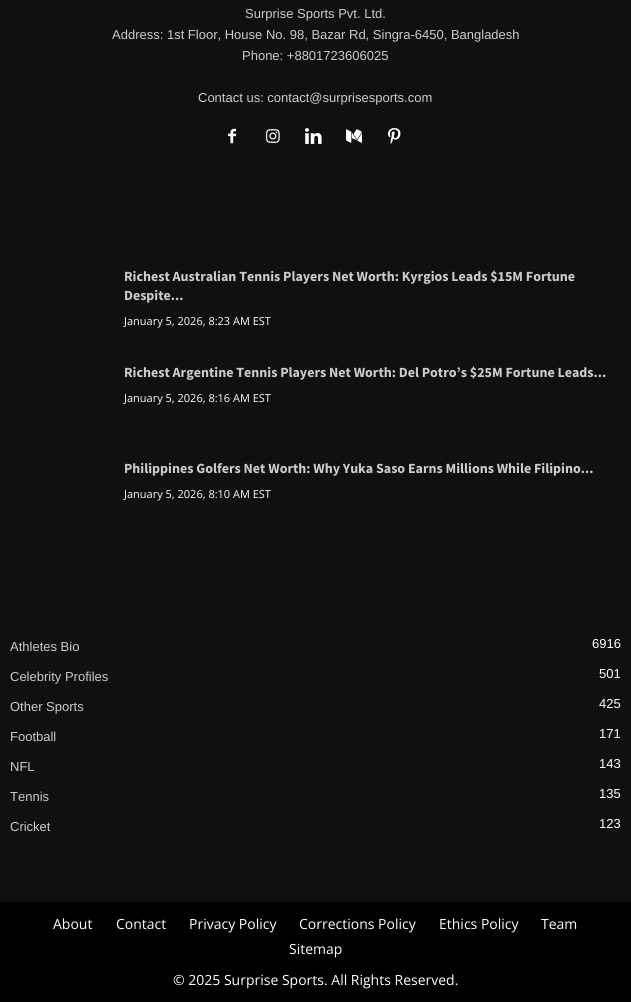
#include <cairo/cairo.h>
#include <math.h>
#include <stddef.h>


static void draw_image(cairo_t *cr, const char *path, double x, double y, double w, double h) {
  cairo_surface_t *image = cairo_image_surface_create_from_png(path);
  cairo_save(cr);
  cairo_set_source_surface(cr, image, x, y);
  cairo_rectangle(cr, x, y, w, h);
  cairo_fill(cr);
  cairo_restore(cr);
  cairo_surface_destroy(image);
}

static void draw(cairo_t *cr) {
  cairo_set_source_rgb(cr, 0, 0, 0);
  cairo_paint(cr);
  cairo_set_source_rgb(cr, 16 / 255.0, 16 / 255.0, 16 / 255.0);
  cairo_rectangle(cr, 0, 0, 631, 902);
  cairo_fill(cr);
  draw_image(cr, "images/1.png", 228, 128, 8, 16);
  draw_image(cr, "images/2.png", 266, 129, 14, 14);
  draw_image(cr, "images/3.png", 305, 128, 17, 16);
  draw_image(cr, "images/4.png", 346, 129, 16, 14);
  draw_image(cr, "images/5.png", 388, 128, 13, 16);
  cairo_select_font_face(cr, "Liberation Sans", CAIRO_FONT_SLANT_NORMAL, CAIRO_FONT_WEIGHT_NORMAL);
  cairo_set_font_size(cr, 13);
  cairo_set_source_rgb(cr, 204 / 255.0, 204 / 255.0, 204 / 255.0);
  cairo_move_to(cr, 245, 18);
  cairo_show_text(cr, "Surprise Sports Pvt. Ltd.");
  cairo_move_to(cr, 112, 39);
  cairo_show_text(cr, "Address: 1st Floor, House No. 98, Bazar Rd, Singra-6450, Bangladesh");
  cairo_move_to(cr, 242, 60);
  cairo_show_text(cr, "Phone: +8801723606025");
  cairo_move_to(cr, 198, 102);
  cairo_show_text(cr, "Contact us: contact@surprisesports.com");
  cairo_select_font_face(cr, "Source Sans Pro", CAIRO_FONT_SLANT_NORMAL, CAIRO_FONT_WEIGHT_BOLD);
  cairo_set_font_size(cr, 14);
  cairo_move_to(cr, 124, 281);
  cairo_show_text(cr, "Richest Australian Tennis Players Net Worth: Kyrgios Leads $15M Fortune");
  cairo_move_to(cr, 124, 300);
  cairo_show_text(cr, "Despite...");
  cairo_select_font_face(cr, "Open Sans", CAIRO_FONT_SLANT_NORMAL, CAIRO_FONT_WEIGHT_NORMAL);
  cairo_set_font_size(cr, 11);
  cairo_set_source_rgb(cr, 1, 1, 1);
  cairo_move_to(cr, 124, 325);
  cairo_show_text(cr, "January 5, 2026, 8:23 AM EST");
  cairo_select_font_face(cr, "Source Sans Pro", CAIRO_FONT_SLANT_NORMAL, CAIRO_FONT_WEIGHT_BOLD);
  cairo_set_font_size(cr, 14);
  cairo_set_source_rgb(cr, 204 / 255.0, 204 / 255.0, 204 / 255.0);
  cairo_move_to(cr, 124, 377);
  cairo_show_text(cr, "Richest Argentine Tennis Players Net Worth: Del Potro’s $25M Fortune Leads...");
  cairo_select_font_face(cr, "Open Sans", CAIRO_FONT_SLANT_NORMAL, CAIRO_FONT_WEIGHT_NORMAL);
  cairo_set_font_size(cr, 11);
  cairo_set_source_rgb(cr, 1, 1, 1);
  cairo_move_to(cr, 124, 402);
  cairo_show_text(cr, "January 5, 2026, 8:16 AM EST");
  cairo_select_font_face(cr, "Source Sans Pro", CAIRO_FONT_SLANT_NORMAL, CAIRO_FONT_WEIGHT_BOLD);
  cairo_set_font_size(cr, 14);
  cairo_set_source_rgb(cr, 204 / 255.0, 204 / 255.0, 204 / 255.0);
  cairo_move_to(cr, 124, 473);
  cairo_show_text(cr, "Philippines Golfers Net Worth: Why Yuka Saso Earns Millions While Filipino...");
  cairo_select_font_face(cr, "Open Sans", CAIRO_FONT_SLANT_NORMAL, CAIRO_FONT_WEIGHT_NORMAL);
  cairo_set_font_size(cr, 11);
  cairo_set_source_rgb(cr, 1, 1, 1);
  cairo_move_to(cr, 124, 498);
  cairo_show_text(cr, "January 5, 2026, 8:10 AM EST");
  cairo_select_font_face(cr, "Liberation Sans", CAIRO_FONT_SLANT_NORMAL, CAIRO_FONT_WEIGHT_NORMAL);
  cairo_set_font_size(cr, 13);
  cairo_set_source_rgb(cr, 204 / 255.0, 204 / 255.0, 204 / 255.0);
  cairo_move_to(cr, 10, 651);
  cairo_show_text(cr, "Athletes Bio");
  cairo_set_source_rgb(cr, 1, 1, 1);
  cairo_move_to(cr, 592, 648);
  cairo_show_text(cr, "6916");
  cairo_set_source_rgb(cr, 204 / 255.0, 204 / 255.0, 204 / 255.0);
  cairo_move_to(cr, 10, 681);
  cairo_show_text(cr, "Celebrity Profiles");
  cairo_set_source_rgb(cr, 1, 1, 1);
  cairo_move_to(cr, 599, 678);
  cairo_show_text(cr, "501");
  cairo_set_source_rgb(cr, 204 / 255.0, 204 / 255.0, 204 / 255.0);
  cairo_move_to(cr, 10, 711);
  cairo_show_text(cr, "Other Sports");
  cairo_set_source_rgb(cr, 1, 1, 1);
  cairo_move_to(cr, 599, 708);
  cairo_show_text(cr, "425");
  cairo_set_source_rgb(cr, 204 / 255.0, 204 / 255.0, 204 / 255.0);
  cairo_move_to(cr, 10, 741);
  cairo_show_text(cr, "Football");
  cairo_set_source_rgb(cr, 1, 1, 1);
  cairo_move_to(cr, 599, 738);
  cairo_show_text(cr, "171");
  cairo_set_source_rgb(cr, 204 / 255.0, 204 / 255.0, 204 / 255.0);
  cairo_move_to(cr, 10, 771);
  cairo_show_text(cr, "NFL");
  cairo_set_source_rgb(cr, 1, 1, 1);
  cairo_move_to(cr, 599, 768);
  cairo_show_text(cr, "143");
  cairo_set_source_rgb(cr, 204 / 255.0, 204 / 255.0, 204 / 255.0);
  cairo_move_to(cr, 10, 801);
  cairo_show_text(cr, "Tennis");
  cairo_set_source_rgb(cr, 1, 1, 1);
  cairo_move_to(cr, 599, 798);
  cairo_show_text(cr, "135");
  cairo_set_source_rgb(cr, 204 / 255.0, 204 / 255.0, 204 / 255.0);
  cairo_move_to(cr, 10, 831);
  cairo_show_text(cr, "Cricket");
  cairo_set_source_rgb(cr, 1, 1, 1);
  cairo_move_to(cr, 599, 828);
  cairo_show_text(cr, "123");
  cairo_select_font_face(cr, "Open Sans", CAIRO_FONT_SLANT_NORMAL, CAIRO_FONT_WEIGHT_NORMAL);
  cairo_set_font_size(cr, 14);
  cairo_move_to(cr, 53, 929);
  cairo_show_text(cr, "About");
  cairo_move_to(cr, 116, 929);
  cairo_show_text(cr, "Contact");
  cairo_move_to(cr, 189, 929);
  cairo_show_text(cr, "Privacy Policy");
  cairo_move_to(cr, 299, 929);
  cairo_show_text(cr, "Corrections Policy");
  cairo_move_to(cr, 439, 929);
  cairo_show_text(cr, "Ethics Policy");
  cairo_move_to(cr, 541, 929);
  cairo_show_text(cr, "Team");
  cairo_move_to(cr, 289, 954);
  cairo_show_text(cr, "Sitemap");
  cairo_move_to(cr, 173, 985);
  cairo_show_text(cr, "© 2025 Surprise Sports. All Rights Reserved.");
}

int main(void) {
  cairo_surface_t *surface = cairo_image_surface_create(CAIRO_FORMAT_RGB24, 631, 1002);
  cairo_t *cr = cairo_create(surface);
  cairo_font_options_t *options = cairo_font_options_create();
  cairo_font_options_set_hint_metrics(options, CAIRO_HINT_METRICS_OFF);
  cairo_font_options_set_hint_style(options, CAIRO_HINT_STYLE_NONE);
  cairo_set_font_options(cr, options);
  cairo_set_miter_limit(cr, 4);
  draw(cr);
  cairo_surface_write_to_png(surface, "out.png");
  cairo_font_options_destroy(options);
  cairo_destroy(cr);
  cairo_surface_destroy(surface);
  return 0;
}
